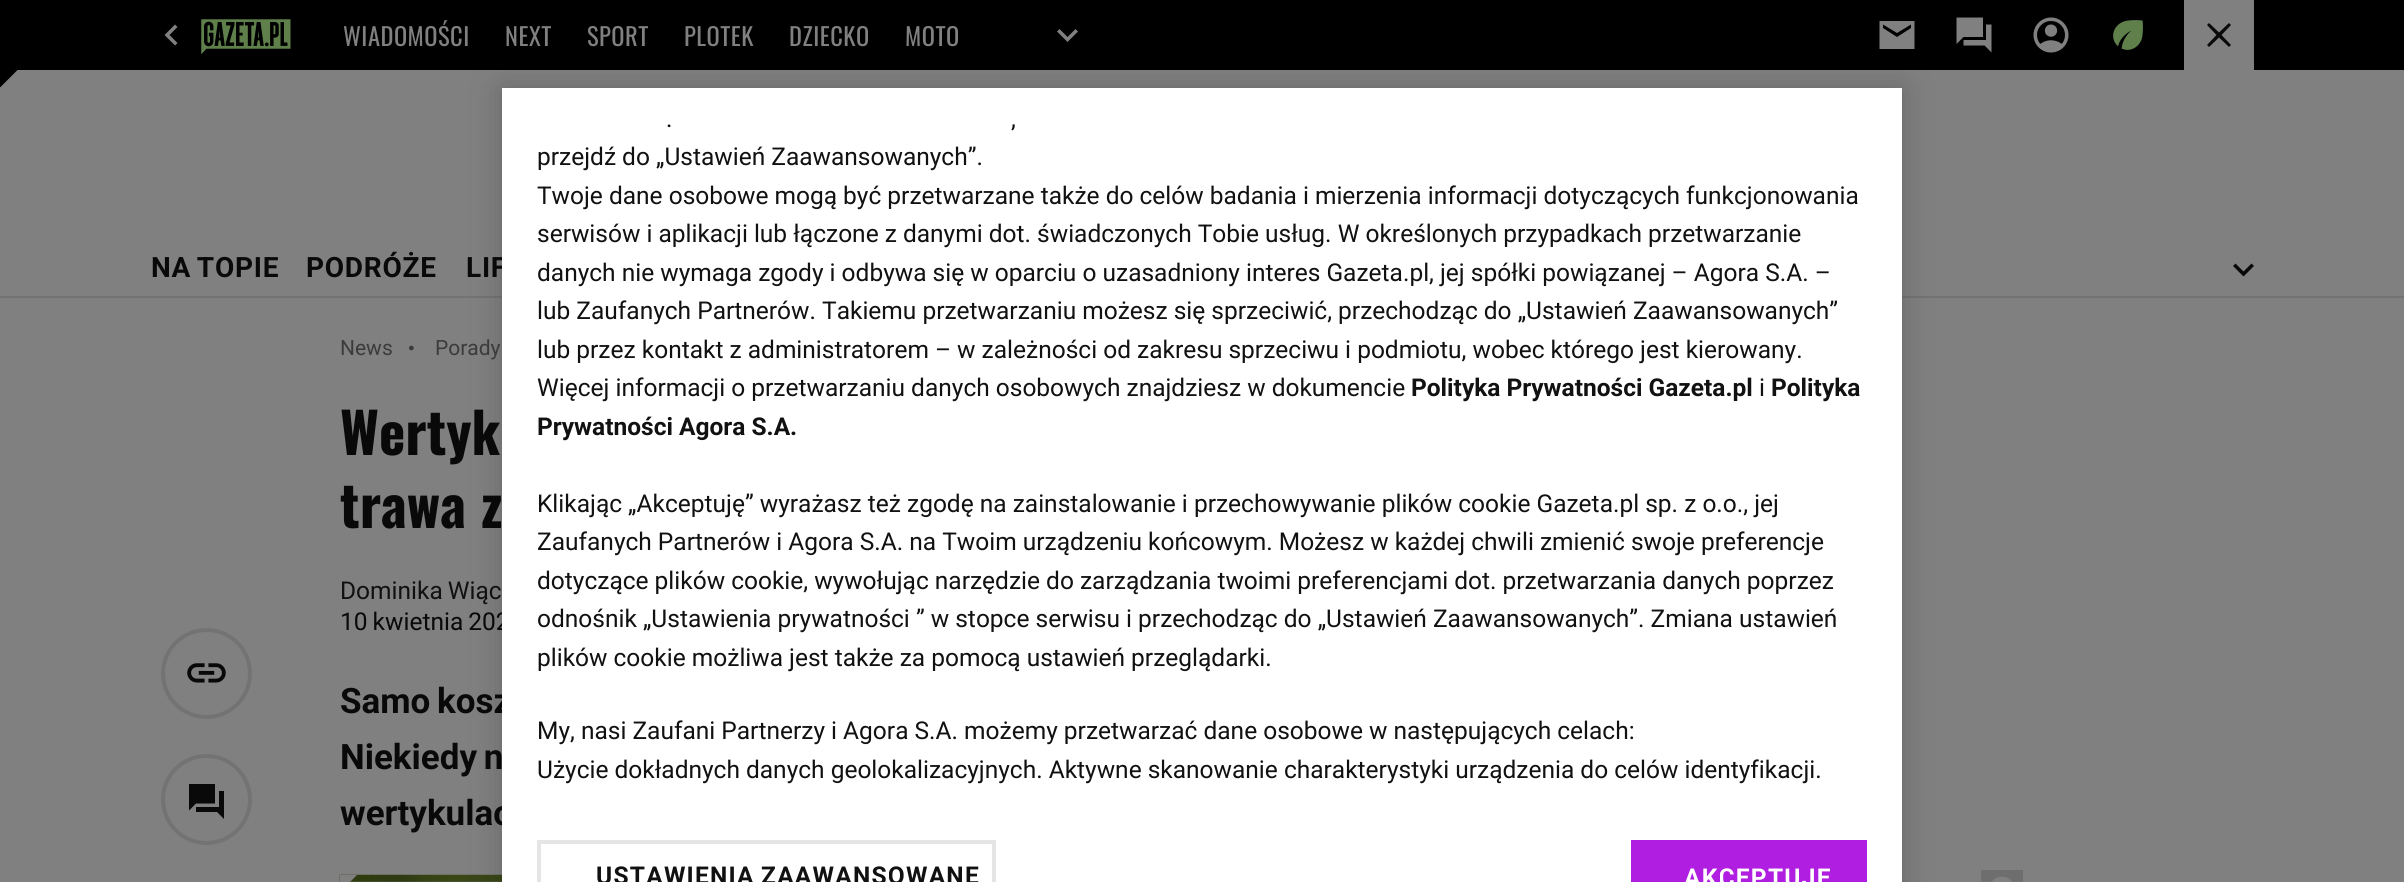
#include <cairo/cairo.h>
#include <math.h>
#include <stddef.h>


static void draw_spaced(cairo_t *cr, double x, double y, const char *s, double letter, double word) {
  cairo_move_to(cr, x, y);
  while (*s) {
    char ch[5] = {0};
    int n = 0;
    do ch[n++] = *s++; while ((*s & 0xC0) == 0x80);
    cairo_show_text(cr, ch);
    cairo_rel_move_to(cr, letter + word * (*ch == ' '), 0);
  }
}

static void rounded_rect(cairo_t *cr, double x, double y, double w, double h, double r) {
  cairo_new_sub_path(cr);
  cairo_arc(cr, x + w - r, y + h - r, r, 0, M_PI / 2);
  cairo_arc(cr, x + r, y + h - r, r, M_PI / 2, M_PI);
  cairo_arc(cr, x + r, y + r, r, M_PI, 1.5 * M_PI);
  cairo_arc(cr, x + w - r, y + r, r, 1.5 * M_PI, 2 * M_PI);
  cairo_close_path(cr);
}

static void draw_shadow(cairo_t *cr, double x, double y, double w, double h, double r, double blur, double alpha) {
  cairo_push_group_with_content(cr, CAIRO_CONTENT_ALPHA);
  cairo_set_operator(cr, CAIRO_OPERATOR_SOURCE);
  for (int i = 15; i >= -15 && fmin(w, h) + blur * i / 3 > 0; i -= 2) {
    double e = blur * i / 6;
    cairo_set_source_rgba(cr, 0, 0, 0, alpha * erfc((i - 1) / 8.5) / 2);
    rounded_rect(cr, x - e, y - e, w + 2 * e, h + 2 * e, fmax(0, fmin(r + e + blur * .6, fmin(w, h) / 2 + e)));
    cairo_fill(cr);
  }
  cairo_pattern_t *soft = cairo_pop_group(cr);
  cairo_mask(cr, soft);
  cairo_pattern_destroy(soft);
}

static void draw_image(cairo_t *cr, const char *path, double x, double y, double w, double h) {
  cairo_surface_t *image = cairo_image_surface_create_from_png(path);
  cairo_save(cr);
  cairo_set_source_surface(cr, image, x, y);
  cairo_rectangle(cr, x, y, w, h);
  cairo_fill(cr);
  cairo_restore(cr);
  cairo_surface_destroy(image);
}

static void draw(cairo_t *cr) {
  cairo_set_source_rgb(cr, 128 / 255.0, 128 / 255.0, 128 / 255.0);
  cairo_paint(cr);
  cairo_set_source_rgb(cr, 0, 0, 0);
  cairo_rectangle(cr, 0, 0, 2404, 70);
  cairo_fill(cr);
  cairo_set_source_rgb(cr, 128 / 255.0, 128 / 255.0, 128 / 255.0);
  cairo_new_path(cr);
  cairo_move_to(cr, 177.5, 27);
  cairo_line_to(cr, 175, 24.5);
  cairo_line_to(cr, 164.5, 35);
  cairo_line_to(cr, 175, 45.5);
  cairo_line_to(cr, 177.5, 43);
  cairo_line_to(cr, 169.5, 35);
  cairo_close_path(cr);
  cairo_fill(cr);
  draw_image(cr, "images/1.png", 201, 19, 90, 35);
  cairo_new_path(cr);
  cairo_move_to(cr, 1075.5, 29);
  cairo_line_to(cr, 1067.5, 37);
  cairo_line_to(cr, 1059.5, 29);
  cairo_line_to(cr, 1057, 31.5);
  cairo_line_to(cr, 1067.5, 42);
  cairo_line_to(cr, 1078, 31.5);
  cairo_close_path(cr);
  cairo_fill(cr);
  cairo_new_path(cr);
  cairo_move_to(cr, 1911, 24.5);
  cairo_line_to(cr, 1911, 28);
  cairo_line_to(cr, 1897, 37);
  cairo_line_to(cr, 1883, 28);
  cairo_line_to(cr, 1883, 24.5);
  cairo_line_to(cr, 1897, 33);
  cairo_close_path(cr);
  cairo_move_to(cr, 1879.5, 49);
  cairo_line_to(cr, 1914.5, 49);
  cairo_line_to(cr, 1914.5, 21);
  cairo_line_to(cr, 1879.5, 21);
  cairo_close_path(cr);
  cairo_fill(cr);
  cairo_new_path(cr);
  cairo_move_to(cr, 1986, 24.5);
  cairo_line_to(cr, 1986, 40);
  cairo_line_to(cr, 1963.5, 40);
  cairo_line_to(cr, 1963.5, 45.5);
  cairo_line_to(cr, 1984.5, 45.5);
  cairo_line_to(cr, 1991.5, 52.5);
  cairo_line_to(cr, 1991.5, 24.5);
  cairo_close_path(cr);
  cairo_move_to(cr, 1956.5, 17.5);
  cairo_line_to(cr, 1956.5, 44);
  cairo_line_to(cr, 1963.5, 37);
  cairo_line_to(cr, 1983, 37);
  cairo_line_to(cr, 1983, 17.5);
  cairo_close_path(cr);
  cairo_fill(cr);
  draw_image(cr, "images/2.png", 2033, 17, 36, 36);
  draw_image(cr, "images/3.png", 2113, 20, 30, 30);
  cairo_rectangle(cr, 2184, 0, 70, 70);
  cairo_fill(cr);
  cairo_set_source_rgb(cr, 9 / 255.0, 9 / 255.0, 9 / 255.0);
  cairo_new_path(cr);
  cairo_move_to(cr, 2231, 25);
  cairo_line_to(cr, 2229, 23);
  cairo_line_to(cr, 2219, 32.5);
  cairo_line_to(cr, 2209, 23);
  cairo_line_to(cr, 2207, 25);
  cairo_line_to(cr, 2216.5, 35);
  cairo_line_to(cr, 2207, 45);
  cairo_line_to(cr, 2209, 47);
  cairo_line_to(cr, 2219, 37.5);
  cairo_line_to(cr, 2229, 47);
  cairo_line_to(cr, 2231, 45);
  cairo_line_to(cr, 2221.5, 35);
  cairo_close_path(cr);
  cairo_fill(cr);
  cairo_set_source_rgb(cr, 0, 0, 0);
  cairo_new_path(cr);
  cairo_move_to(cr, 0, 70);
  cairo_line_to(cr, 17.5, 70);
  cairo_line_to(cr, 0, 87.5);
  cairo_close_path(cr);
  cairo_fill(cr);
  cairo_set_source_rgb(cr, 115 / 255.0, 115 / 255.0, 115 / 255.0);
  cairo_rectangle(cr, 0, 296, 2404, 2);
  cairo_fill(cr);
  cairo_set_source_rgb(cr, 9 / 255.0, 9 / 255.0, 9 / 255.0);
  cairo_new_path(cr);
  cairo_move_to(cr, 2251.5, 263.5);
  cairo_line_to(cr, 2243.5, 271.5);
  cairo_line_to(cr, 2235.5, 263.5);
  cairo_line_to(cr, 2233, 266);
  cairo_line_to(cr, 2243.5, 276.5);
  cairo_line_to(cr, 2254, 266);
  cairo_close_path(cr);
  cairo_fill(cr);
  cairo_arc(cr, 206.5, 673.5, 43.5, 0, 2 * M_PI);
  cairo_set_source_rgb(cr, 115 / 255.0, 115 / 255.0, 115 / 255.0);
  cairo_set_line_width(cr, 4);
  cairo_stroke(cr);
  draw_image(cr, "images/4.png", 187, 663, 39, 20);
  cairo_arc(cr, 206.5, 799.5, 43.5, 0, 2 * M_PI);
  cairo_stroke(cr);
  cairo_set_source_rgb(cr, 9 / 255.0, 9 / 255.0, 9 / 255.0);
  cairo_new_path(cr);
  cairo_move_to(cr, 219, 791);
  cairo_line_to(cr, 219, 807);
  cairo_line_to(cr, 196, 807);
  cairo_line_to(cr, 196, 812);
  cairo_line_to(cr, 217, 812);
  cairo_line_to(cr, 224, 819);
  cairo_line_to(cr, 224, 791);
  cairo_close_path(cr);
  cairo_move_to(cr, 189, 784);
  cairo_line_to(cr, 189, 810.5);
  cairo_line_to(cr, 196, 803.5);
  cairo_line_to(cr, 215, 803.5);
  cairo_line_to(cr, 215, 784);
  cairo_close_path(cr);
  cairo_fill(cr);
  draw_image(cr, "images/5.png", 339, 874, 163, 8);
  cairo_set_source_rgb(cr, 128 / 255.0, 128 / 255.0, 128 / 255.0);
  cairo_new_path(cr);
  cairo_move_to(cr, 339.5, 875);
  cairo_line_to(cr, 357, 875);
  cairo_line_to(cr, 339.5, 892.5);
  cairo_close_path(cr);
  cairo_fill(cr);
  draw_image(cr, "images/6.png", 1981, 870, 42, 12);
  cairo_set_source_rgb(cr, 0, 0, 0);
  draw_shadow(cr, 502, 88, 1400, 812, 0, 16, 0.2);
  cairo_select_font_face(cr, "Oswald", CAIRO_FONT_SLANT_NORMAL, CAIRO_FONT_WEIGHT_NORMAL);
  cairo_set_font_size(cr, 24.5);
  cairo_set_source_rgb(cr, 128 / 255.0, 128 / 255.0, 128 / 255.0);
  draw_spaced(cr, 343, 46, "WIADOMOŚCI", 0.5, 0);
  draw_spaced(cr, 505, 46, "NEXT", 0.5, 0);
  draw_spaced(cr, 587, 46, "SPORT", 0.5, 0);
  draw_spaced(cr, 684, 46, "PLOTEK", 0.5, 0);
  draw_spaced(cr, 789, 46, "DZIECKO", 0.5, 0);
  draw_spaced(cr, 905, 46, "MOTO", 0.5, 0);
  cairo_select_font_face(cr, "Roboto", CAIRO_FONT_SLANT_NORMAL, CAIRO_FONT_WEIGHT_BOLD);
  cairo_set_font_size(cr, 28);
  cairo_set_source_rgb(cr, 9 / 255.0, 9 / 255.0, 9 / 255.0);
  draw_spaced(cr, 151, 277, "NA TOPIE", 0.75, -2);
  draw_spaced(cr, 306, 277, "PODRÓŻE", 0.75, 0);
  draw_spaced(cr, 466, 277, "LIF", 0.75, 0);
  cairo_select_font_face(cr, "Roboto", CAIRO_FONT_SLANT_NORMAL, CAIRO_FONT_WEIGHT_NORMAL);
  cairo_set_font_size(cr, 21);
  cairo_set_source_rgb(cr, 59 / 255.0, 59 / 255.0, 59 / 255.0);
  cairo_move_to(cr, 340, 355);
  cairo_show_text(cr, "News");
  cairo_set_font_size(cr, 42);
  cairo_move_to(cr, 406, 363);
  cairo_show_text(cr, "·");
  cairo_set_font_size(cr, 21);
  cairo_move_to(cr, 435, 355);
  cairo_show_text(cr, "Porady");
  cairo_select_font_face(cr, "Oswald", CAIRO_FONT_SLANT_NORMAL, CAIRO_FONT_WEIGHT_BOLD);
  cairo_set_font_size(cr, 56);
  cairo_set_source_rgb(cr, 9 / 255.0, 9 / 255.0, 9 / 255.0);
  cairo_move_to(cr, 340, 455);
  cairo_show_text(cr, "Wertyk");
  cairo_move_to(cr, 340, 528);
  cairo_show_text(cr, "trawa z");
  cairo_select_font_face(cr, "Roboto", CAIRO_FONT_SLANT_NORMAL, CAIRO_FONT_WEIGHT_NORMAL);
  cairo_set_font_size(cr, 24.5);
  cairo_set_source_rgb(cr, 17 / 255.0, 17 / 255.0, 17 / 255.0);
  draw_spaced(cr, 340, 599, "Dominika Wiąc", 0, -1);
  cairo_set_source_rgb(cr, 9 / 255.0, 9 / 255.0, 9 / 255.0);
  draw_spaced(cr, 340, 630, "10 kwietnia 202", 0, -1);
  cairo_select_font_face(cr, "Roboto", CAIRO_FONT_SLANT_NORMAL, CAIRO_FONT_WEIGHT_BOLD);
  cairo_set_font_size(cr, 35);
  draw_spaced(cr, 340, 713, "Samo kosz", 0, -2);
  draw_spaced(cr, 340, 769, "Niekiedy n", 0, -2);
  draw_spaced(cr, 340, 825, "wertykulac", 0, -2);
  cairo_set_source_rgb(cr, 1, 1, 1);
  cairo_rectangle(cr, 502, 88, 1400, 794);
  cairo_fill(cr);
  cairo_select_font_face(cr, "Roboto", CAIRO_FONT_SLANT_NORMAL, CAIRO_FONT_WEIGHT_NORMAL);
  cairo_set_font_size(cr, 24.5);
  cairo_set_source_rgb(cr, 17 / 255.0, 17 / 255.0, 17 / 255.0);
  cairo_move_to(cr, 666, 127);
  cairo_show_text(cr, ".");
  cairo_move_to(cr, 1011, 127);
  cairo_show_text(cr, ",");
  cairo_move_to(cr, 537, 165);
  cairo_show_text(cr, "przejdź do „Ustawień Zaawansowanych”.");
  cairo_move_to(cr, 537, 204);
  cairo_show_text(cr, "Twoje dane osobowe mogą być przetwarzane także do celów badania i mierzenia informacji dotyczących funkcjonowania");
  cairo_move_to(cr, 537, 242);
  cairo_show_text(cr, "serwisów i aplikacji lub łączone z danymi dot. świadczonych Tobie usług. W określonych przypadkach przetwarzanie");
  cairo_move_to(cr, 537, 281);
  cairo_show_text(cr, "danych nie wymaga zgody i odbywa się w oparciu o uzasadniony interes Gazeta.pl, jej spółki powiązanej – Agora S.A. –");
  cairo_move_to(cr, 537, 319);
  cairo_show_text(cr, "lub Zaufanych Partnerów. Takiemu przetwarzaniu możesz się sprzeciwić, przechodząc do „Ustawień Zaawansowanych”");
  cairo_move_to(cr, 537, 358);
  cairo_show_text(cr, "lub przez kontakt z administratorem – w zależności od zakresu sprzeciwu i podmiotu, wobec którego jest kierowany.");
  cairo_move_to(cr, 537, 396);
  cairo_show_text(cr, "Więcej informacji o przetwarzaniu danych osobowych znajdziesz w dokumencie");
  cairo_select_font_face(cr, "Roboto", CAIRO_FONT_SLANT_NORMAL, CAIRO_FONT_WEIGHT_BOLD);
  cairo_move_to(cr, 1411, 396);
  cairo_show_text(cr, "Polityka Prywatności Gazeta.pl");
  cairo_select_font_face(cr, "Roboto", CAIRO_FONT_SLANT_NORMAL, CAIRO_FONT_WEIGHT_NORMAL);
  cairo_move_to(cr, 1759, 396);
  cairo_show_text(cr, "i");
  cairo_select_font_face(cr, "Roboto", CAIRO_FONT_SLANT_NORMAL, CAIRO_FONT_WEIGHT_BOLD);
  cairo_move_to(cr, 1771, 396);
  cairo_show_text(cr, "Polityka");
  cairo_move_to(cr, 537, 435);
  cairo_show_text(cr, "Prywatności Agora S.A.");
  cairo_select_font_face(cr, "Roboto", CAIRO_FONT_SLANT_NORMAL, CAIRO_FONT_WEIGHT_NORMAL);
  cairo_move_to(cr, 537, 512);
  cairo_show_text(cr, "Klikając „Akceptuję” wyrażasz też zgodę na zainstalowanie i przechowywanie plików cookie Gazeta.pl sp. z o.o., jej");
  cairo_move_to(cr, 537, 550);
  cairo_show_text(cr, "Zaufanych Partnerów i Agora S.A. na Twoim urządzeniu końcowym. Możesz w każdej chwili zmienić swoje preferencje");
  cairo_move_to(cr, 537, 589);
  cairo_show_text(cr, "dotyczące plików cookie, wywołując narzędzie do zarządzania twoimi preferencjami dot. przetwarzania danych poprzez");
  cairo_move_to(cr, 537, 627);
  cairo_show_text(cr, "odnośnik „Ustawienia prywatności ” w stopce serwisu i przechodząc do „Ustawień Zaawansowanych”. Zmiana ustawień");
  cairo_move_to(cr, 537, 666);
  cairo_show_text(cr, "plików cookie możliwa jest także za pomocą ustawień przeglądarki.");
  cairo_move_to(cr, 537, 739);
  cairo_show_text(cr, "My, nasi Zaufani Partnerzy i Agora S.A. możemy przetwarzać dane osobowe w następujących celach:");
  cairo_move_to(cr, 537, 778);
  cairo_show_text(cr, "Użycie dokładnych danych geolokalizacyjnych. Aktywne skanowanie charakterystyki urządzenia do celów identyfikacji.");
  cairo_rectangle(cr, 539, 842, 455, 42);
  cairo_set_source_rgb(cr, 229 / 255.0, 229 / 255.0, 229 / 255.0);
  cairo_stroke(cr);
  cairo_select_font_face(cr, "Roboto", CAIRO_FONT_SLANT_NORMAL, CAIRO_FONT_WEIGHT_BOLD);
  cairo_set_source_rgb(cr, 17 / 255.0, 17 / 255.0, 17 / 255.0);
  draw_spaced(cr, 596, 884, "USTAWIENIA ZAAWANSOWANE", 1.25, -1);
  cairo_set_source_rgb(cr, 176 / 255.0, 30 / 255.0, 225 / 255.0);
  cairo_rectangle(cr, 1631, 840, 236, 42);
  cairo_fill(cr);
  cairo_set_source_rgb(cr, 1, 1, 1);
  draw_spaced(cr, 1684, 886, "AKCEPTUJĘ", 1.25, 0);
}

int main(void) {
  cairo_surface_t *surface = cairo_image_surface_create(CAIRO_FORMAT_RGB24, 2404, 882);
  cairo_t *cr = cairo_create(surface);
  cairo_font_options_t *options = cairo_font_options_create();
  cairo_font_options_set_hint_metrics(options, CAIRO_HINT_METRICS_OFF);
  cairo_font_options_set_hint_style(options, CAIRO_HINT_STYLE_NONE);
  cairo_set_font_options(cr, options);
  cairo_set_miter_limit(cr, 4);
  draw(cr);
  cairo_surface_write_to_png(surface, "out.png");
  cairo_font_options_destroy(options);
  cairo_destroy(cr);
  cairo_surface_destroy(surface);
  return 0;
}
